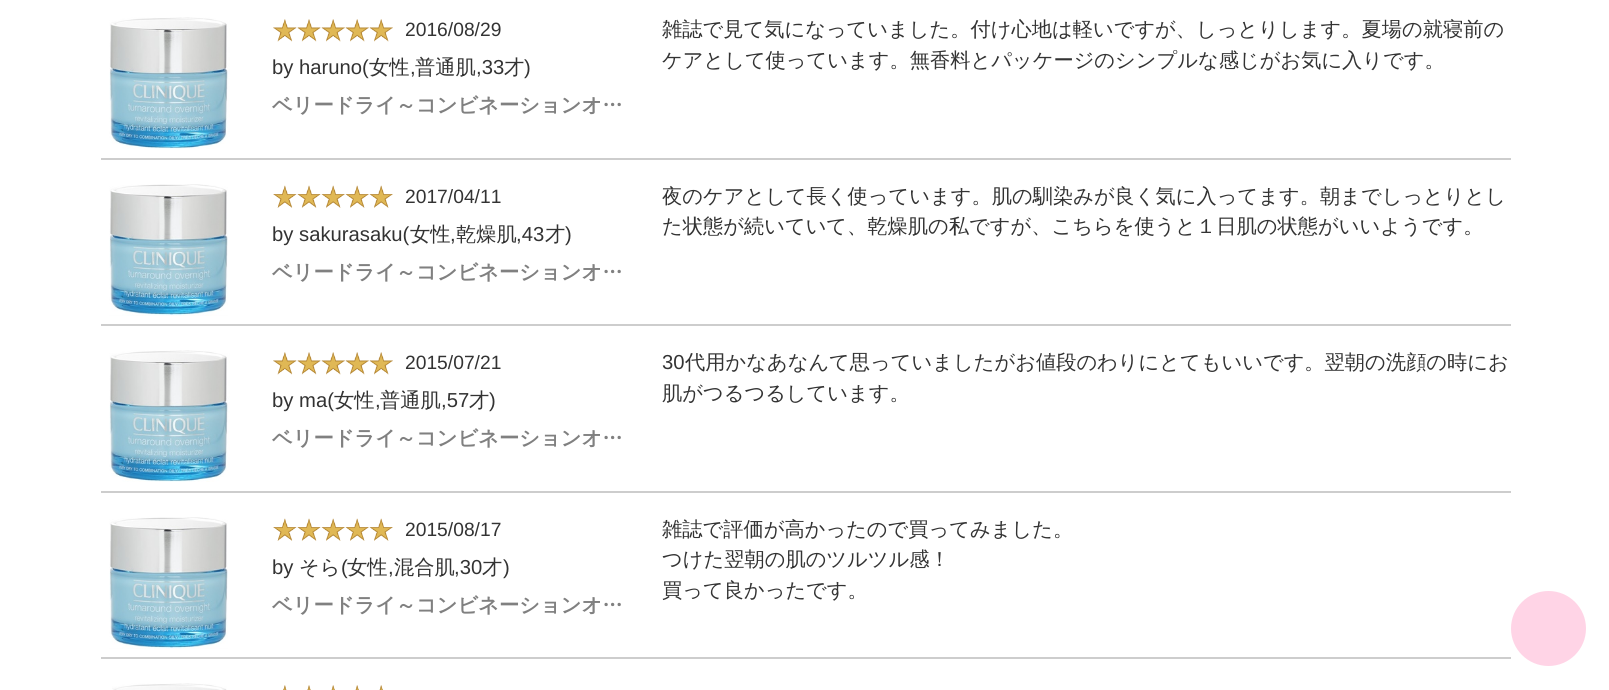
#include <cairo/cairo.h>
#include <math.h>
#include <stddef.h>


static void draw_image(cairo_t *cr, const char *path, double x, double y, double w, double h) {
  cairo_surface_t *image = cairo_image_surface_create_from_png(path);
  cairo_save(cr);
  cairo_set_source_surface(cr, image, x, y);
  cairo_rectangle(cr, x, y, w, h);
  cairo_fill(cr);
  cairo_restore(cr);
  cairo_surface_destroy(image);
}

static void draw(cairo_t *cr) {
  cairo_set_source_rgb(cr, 1, 1, 1);
  cairo_paint(cr);
  cairo_set_source_rgb(cr, 205 / 255.0, 205 / 255.0, 205 / 255.0);
  cairo_rectangle(cr, 101, 158, 1410, 2);
  cairo_fill(cr);
  draw_image(cr, "images/1.png", 109, 17, 121, 132);
  draw_image(cr, "images/2.png", 273, 19, 120, 23);
  cairo_rectangle(cr, 101, 324, 1410, 2);
  cairo_fill(cr);
  draw_image(cr, "images/3.png", 109, 184, 119, 132);
  draw_image(cr, "images/4.png", 273, 185, 120, 23);
  cairo_rectangle(cr, 101, 491, 1410, 2);
  cairo_fill(cr);
  draw_image(cr, "images/1.png", 109, 350, 121, 132);
  draw_image(cr, "images/2.png", 273, 352, 120, 23);
  cairo_rectangle(cr, 101, 657, 1410, 2);
  cairo_fill(cr);
  draw_image(cr, "images/3.png", 109, 517, 119, 132);
  draw_image(cr, "images/4.png", 273, 518, 120, 23);
  draw_image(cr, "images/5.png", 112, 683, 115, 7);
  draw_image(cr, "images/6.png", 283, 685, 100, 5);
  cairo_set_source_rgb(cr, 1, 212 / 255.0, 230 / 255.0);
  cairo_arc(cr, 1548.5, 628.5, 37.5, 0, 2 * M_PI);
  cairo_fill(cr);
  cairo_select_font_face(cr, "Liberation Sans", CAIRO_FONT_SLANT_NORMAL, CAIRO_FONT_WEIGHT_NORMAL);
  cairo_set_font_size(cr, 19.25);
  cairo_set_source_rgb(cr, 51 / 255.0, 51 / 255.0, 51 / 255.0);
  cairo_move_to(cr, 405, 36);
  cairo_show_text(cr, "2016/08/29");
  cairo_set_font_size(cr, 20.25);
  cairo_move_to(cr, 272, 74);
  cairo_show_text(cr, "by haruno(");
  cairo_select_font_face(cr, "WenQuanYi Zen Hei Medium", CAIRO_FONT_SLANT_NORMAL, CAIRO_FONT_WEIGHT_NORMAL);
  cairo_move_to(cr, 369, 74);
  cairo_show_text(cr, "女性");
  cairo_select_font_face(cr, "Liberation Sans", CAIRO_FONT_SLANT_NORMAL, CAIRO_FONT_WEIGHT_NORMAL);
  cairo_move_to(cr, 410, 74);
  cairo_show_text(cr, ",");
  cairo_select_font_face(cr, "WenQuanYi Zen Hei Medium", CAIRO_FONT_SLANT_NORMAL, CAIRO_FONT_WEIGHT_NORMAL);
  cairo_move_to(cr, 415, 74);
  cairo_show_text(cr, "普通肌");
  cairo_select_font_face(cr, "Liberation Sans", CAIRO_FONT_SLANT_NORMAL, CAIRO_FONT_WEIGHT_NORMAL);
  cairo_move_to(cr, 476, 74);
  cairo_show_text(cr, ",33");
  cairo_select_font_face(cr, "WenQuanYi Zen Hei Medium", CAIRO_FONT_SLANT_NORMAL, CAIRO_FONT_WEIGHT_NORMAL);
  cairo_move_to(cr, 504, 74);
  cairo_show_text(cr, "才");
  cairo_select_font_face(cr, "Liberation Sans", CAIRO_FONT_SLANT_NORMAL, CAIRO_FONT_WEIGHT_NORMAL);
  cairo_move_to(cr, 524, 74);
  cairo_show_text(cr, ")");
  cairo_select_font_face(cr, "WenQuanYi Zen Hei", CAIRO_FONT_SLANT_NORMAL, CAIRO_FONT_WEIGHT_BOLD);
  cairo_set_source_rgb(cr, 128 / 255.0, 128 / 255.0, 128 / 255.0);
  cairo_move_to(cr, 272, 112);
  cairo_show_text(cr, "ベリードライ～コンビネーションオ…");
  cairo_select_font_face(cr, "WenQuanYi Zen Hei Medium", CAIRO_FONT_SLANT_NORMAL, CAIRO_FONT_WEIGHT_NORMAL);
  cairo_set_source_rgb(cr, 51 / 255.0, 51 / 255.0, 51 / 255.0);
  cairo_move_to(cr, 662, 36);
  cairo_show_text(cr, "雑誌で見て気になっていました。付け心地は軽いですが、しっとりします。夏場の就寝前の");
  cairo_move_to(cr, 662, 67);
  cairo_show_text(cr, "ケアとして使っています。無香料とパッケージのシンプルな感じがお気に入りです。");
  cairo_select_font_face(cr, "Liberation Sans", CAIRO_FONT_SLANT_NORMAL, CAIRO_FONT_WEIGHT_NORMAL);
  cairo_set_font_size(cr, 19.25);
  cairo_move_to(cr, 405, 203);
  cairo_show_text(cr, "2017/04/11");
  cairo_set_font_size(cr, 20.25);
  cairo_move_to(cr, 272, 241);
  cairo_show_text(cr, "by sakurasaku(");
  cairo_select_font_face(cr, "WenQuanYi Zen Hei Medium", CAIRO_FONT_SLANT_NORMAL, CAIRO_FONT_WEIGHT_NORMAL);
  cairo_move_to(cr, 410, 241);
  cairo_show_text(cr, "女性");
  cairo_select_font_face(cr, "Liberation Sans", CAIRO_FONT_SLANT_NORMAL, CAIRO_FONT_WEIGHT_NORMAL);
  cairo_move_to(cr, 450, 241);
  cairo_show_text(cr, ",");
  cairo_select_font_face(cr, "WenQuanYi Zen Hei Medium", CAIRO_FONT_SLANT_NORMAL, CAIRO_FONT_WEIGHT_NORMAL);
  cairo_move_to(cr, 456, 241);
  cairo_show_text(cr, "乾燥肌");
  cairo_select_font_face(cr, "Liberation Sans", CAIRO_FONT_SLANT_NORMAL, CAIRO_FONT_WEIGHT_NORMAL);
  cairo_move_to(cr, 516, 241);
  cairo_show_text(cr, ",43");
  cairo_select_font_face(cr, "WenQuanYi Zen Hei Medium", CAIRO_FONT_SLANT_NORMAL, CAIRO_FONT_WEIGHT_NORMAL);
  cairo_move_to(cr, 545, 241);
  cairo_show_text(cr, "才");
  cairo_select_font_face(cr, "Liberation Sans", CAIRO_FONT_SLANT_NORMAL, CAIRO_FONT_WEIGHT_NORMAL);
  cairo_move_to(cr, 565, 241);
  cairo_show_text(cr, ")");
  cairo_select_font_face(cr, "WenQuanYi Zen Hei", CAIRO_FONT_SLANT_NORMAL, CAIRO_FONT_WEIGHT_BOLD);
  cairo_set_source_rgb(cr, 128 / 255.0, 128 / 255.0, 128 / 255.0);
  cairo_move_to(cr, 272, 279);
  cairo_show_text(cr, "ベリードライ～コンビネーションオ…");
  cairo_select_font_face(cr, "WenQuanYi Zen Hei Medium", CAIRO_FONT_SLANT_NORMAL, CAIRO_FONT_WEIGHT_NORMAL);
  cairo_set_source_rgb(cr, 51 / 255.0, 51 / 255.0, 51 / 255.0);
  cairo_move_to(cr, 662, 203);
  cairo_show_text(cr, "夜のケアとして長く使っています。肌の馴染みが良く気に入ってます。朝までしっとりとし");
  cairo_move_to(cr, 662, 233);
  cairo_show_text(cr, "た状態が続いていて、乾燥肌の私ですが、こちらを使うと１日肌の状態がいいようです。");
  cairo_select_font_face(cr, "Liberation Sans", CAIRO_FONT_SLANT_NORMAL, CAIRO_FONT_WEIGHT_NORMAL);
  cairo_set_font_size(cr, 19.25);
  cairo_move_to(cr, 405, 369);
  cairo_show_text(cr, "2015/07/21");
  cairo_set_font_size(cr, 20.25);
  cairo_move_to(cr, 272, 407);
  cairo_show_text(cr, "by ma(");
  cairo_select_font_face(cr, "WenQuanYi Zen Hei Medium", CAIRO_FONT_SLANT_NORMAL, CAIRO_FONT_WEIGHT_NORMAL);
  cairo_move_to(cr, 334, 407);
  cairo_show_text(cr, "女性");
  cairo_select_font_face(cr, "Liberation Sans", CAIRO_FONT_SLANT_NORMAL, CAIRO_FONT_WEIGHT_NORMAL);
  cairo_move_to(cr, 375, 407);
  cairo_show_text(cr, ",");
  cairo_select_font_face(cr, "WenQuanYi Zen Hei Medium", CAIRO_FONT_SLANT_NORMAL, CAIRO_FONT_WEIGHT_NORMAL);
  cairo_move_to(cr, 380, 407);
  cairo_show_text(cr, "普通肌");
  cairo_select_font_face(cr, "Liberation Sans", CAIRO_FONT_SLANT_NORMAL, CAIRO_FONT_WEIGHT_NORMAL);
  cairo_move_to(cr, 441, 407);
  cairo_show_text(cr, ",57");
  cairo_select_font_face(cr, "WenQuanYi Zen Hei Medium", CAIRO_FONT_SLANT_NORMAL, CAIRO_FONT_WEIGHT_NORMAL);
  cairo_move_to(cr, 469, 407);
  cairo_show_text(cr, "才");
  cairo_select_font_face(cr, "Liberation Sans", CAIRO_FONT_SLANT_NORMAL, CAIRO_FONT_WEIGHT_NORMAL);
  cairo_move_to(cr, 489, 407);
  cairo_show_text(cr, ")");
  cairo_select_font_face(cr, "WenQuanYi Zen Hei", CAIRO_FONT_SLANT_NORMAL, CAIRO_FONT_WEIGHT_BOLD);
  cairo_set_source_rgb(cr, 128 / 255.0, 128 / 255.0, 128 / 255.0);
  cairo_move_to(cr, 272, 445);
  cairo_show_text(cr, "ベリードライ～コンビネーションオ…");
  cairo_select_font_face(cr, "Liberation Sans", CAIRO_FONT_SLANT_NORMAL, CAIRO_FONT_WEIGHT_NORMAL);
  cairo_set_source_rgb(cr, 51 / 255.0, 51 / 255.0, 51 / 255.0);
  cairo_move_to(cr, 662, 369);
  cairo_show_text(cr, "30");
  cairo_select_font_face(cr, "WenQuanYi Zen Hei Medium", CAIRO_FONT_SLANT_NORMAL, CAIRO_FONT_WEIGHT_NORMAL);
  cairo_move_to(cr, 685, 369);
  cairo_show_text(cr, "代用かなあなんて思っていましたがお値段のわりにとてもいいです。翌朝の洗顔の時にお");
  cairo_move_to(cr, 662, 400);
  cairo_show_text(cr, "肌がつるつるしています。");
  cairo_select_font_face(cr, "Liberation Sans", CAIRO_FONT_SLANT_NORMAL, CAIRO_FONT_WEIGHT_NORMAL);
  cairo_set_font_size(cr, 19.25);
  cairo_move_to(cr, 405, 536);
  cairo_show_text(cr, "2015/08/17");
  cairo_set_font_size(cr, 20.25);
  cairo_move_to(cr, 272, 574);
  cairo_show_text(cr, "by");
  cairo_select_font_face(cr, "WenQuanYi Zen Hei Medium", CAIRO_FONT_SLANT_NORMAL, CAIRO_FONT_WEIGHT_NORMAL);
  cairo_move_to(cr, 299, 574);
  cairo_show_text(cr, "そら");
  cairo_select_font_face(cr, "Liberation Sans", CAIRO_FONT_SLANT_NORMAL, CAIRO_FONT_WEIGHT_NORMAL);
  cairo_move_to(cr, 341, 574);
  cairo_show_text(cr, "(");
  cairo_select_font_face(cr, "WenQuanYi Zen Hei Medium", CAIRO_FONT_SLANT_NORMAL, CAIRO_FONT_WEIGHT_NORMAL);
  cairo_move_to(cr, 347, 574);
  cairo_show_text(cr, "女性");
  cairo_select_font_face(cr, "Liberation Sans", CAIRO_FONT_SLANT_NORMAL, CAIRO_FONT_WEIGHT_NORMAL);
  cairo_move_to(cr, 388, 574);
  cairo_show_text(cr, ",");
  cairo_select_font_face(cr, "WenQuanYi Zen Hei Medium", CAIRO_FONT_SLANT_NORMAL, CAIRO_FONT_WEIGHT_NORMAL);
  cairo_move_to(cr, 394, 574);
  cairo_show_text(cr, "混合肌");
  cairo_select_font_face(cr, "Liberation Sans", CAIRO_FONT_SLANT_NORMAL, CAIRO_FONT_WEIGHT_NORMAL);
  cairo_move_to(cr, 454, 574);
  cairo_show_text(cr, ",30");
  cairo_select_font_face(cr, "WenQuanYi Zen Hei Medium", CAIRO_FONT_SLANT_NORMAL, CAIRO_FONT_WEIGHT_NORMAL);
  cairo_move_to(cr, 482, 574);
  cairo_show_text(cr, "才");
  cairo_select_font_face(cr, "Liberation Sans", CAIRO_FONT_SLANT_NORMAL, CAIRO_FONT_WEIGHT_NORMAL);
  cairo_move_to(cr, 503, 574);
  cairo_show_text(cr, ")");
  cairo_select_font_face(cr, "WenQuanYi Zen Hei", CAIRO_FONT_SLANT_NORMAL, CAIRO_FONT_WEIGHT_BOLD);
  cairo_set_source_rgb(cr, 128 / 255.0, 128 / 255.0, 128 / 255.0);
  cairo_move_to(cr, 272, 612);
  cairo_show_text(cr, "ベリードライ～コンビネーションオ…");
  cairo_select_font_face(cr, "WenQuanYi Zen Hei Medium", CAIRO_FONT_SLANT_NORMAL, CAIRO_FONT_WEIGHT_NORMAL);
  cairo_set_source_rgb(cr, 51 / 255.0, 51 / 255.0, 51 / 255.0);
  cairo_move_to(cr, 662, 536);
  cairo_show_text(cr, "雑誌で評価が高かったので買ってみました。");
  cairo_move_to(cr, 662, 566);
  cairo_show_text(cr, "つけた翌朝の肌のツルツル感！");
  cairo_move_to(cr, 662, 597);
  cairo_show_text(cr, "買って良かったです。");
}

int main(void) {
  cairo_surface_t *surface = cairo_image_surface_create(CAIRO_FORMAT_RGB24, 1609, 690);
  cairo_t *cr = cairo_create(surface);
  cairo_font_options_t *options = cairo_font_options_create();
  cairo_font_options_set_hint_metrics(options, CAIRO_HINT_METRICS_OFF);
  cairo_font_options_set_hint_style(options, CAIRO_HINT_STYLE_NONE);
  cairo_set_font_options(cr, options);
  cairo_set_miter_limit(cr, 4);
  draw(cr);
  cairo_surface_write_to_png(surface, "out.png");
  cairo_font_options_destroy(options);
  cairo_destroy(cr);
  cairo_surface_destroy(surface);
  return 0;
}
